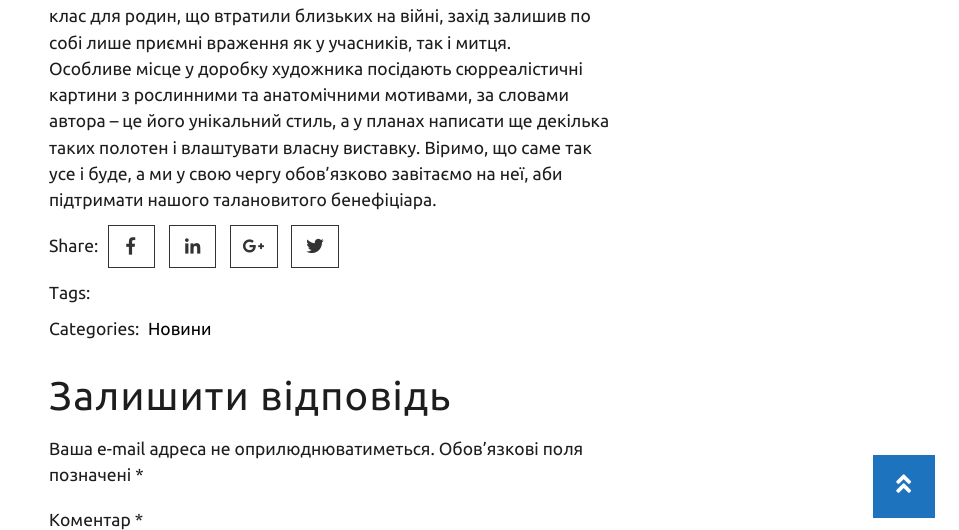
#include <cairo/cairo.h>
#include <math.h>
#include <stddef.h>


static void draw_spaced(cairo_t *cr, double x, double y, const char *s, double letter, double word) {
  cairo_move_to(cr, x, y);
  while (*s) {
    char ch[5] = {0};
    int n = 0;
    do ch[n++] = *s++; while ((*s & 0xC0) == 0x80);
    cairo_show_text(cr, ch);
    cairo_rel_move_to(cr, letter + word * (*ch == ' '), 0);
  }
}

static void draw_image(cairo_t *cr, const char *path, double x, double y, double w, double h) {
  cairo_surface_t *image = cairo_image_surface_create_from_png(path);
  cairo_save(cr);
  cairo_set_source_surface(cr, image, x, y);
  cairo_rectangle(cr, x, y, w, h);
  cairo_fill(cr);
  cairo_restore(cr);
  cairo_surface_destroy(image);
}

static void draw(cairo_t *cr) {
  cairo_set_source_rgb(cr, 1, 1, 1);
  cairo_paint(cr);
  cairo_rectangle(cr, 108.5, 225.5, 46, 42);
  cairo_set_source_rgb(cr, 51 / 255.0, 51 / 255.0, 51 / 255.0);
  cairo_set_line_width(cr, 1);
  cairo_stroke(cr);
  draw_image(cr, "images/1.png", 126, 237, 10, 18);
  cairo_rectangle(cr, 169.5, 225.5, 46, 42);
  cairo_stroke(cr);
  draw_image(cr, "images/2.png", 185, 238, 16, 16);
  cairo_rectangle(cr, 230.5, 225.5, 47, 42);
  cairo_stroke(cr);
  draw_image(cr, "images/3.png", 243, 239, 21, 14);
  cairo_rectangle(cr, 291.5, 225.5, 47, 42);
  cairo_stroke(cr);
  draw_image(cr, "images/4.png", 306, 238, 18, 16);
  cairo_set_source_rgb(cr, 30 / 255.0, 115 / 255.0, 190 / 255.0);
  cairo_rectangle(cr, 873, 455, 62, 63);
  cairo_fill(cr);
  draw_image(cr, "images/5.png", 896, 474, 16, 19);
  cairo_select_font_face(cr, "Ubuntu", CAIRO_FONT_SLANT_NORMAL, CAIRO_FONT_WEIGHT_NORMAL);
  cairo_set_font_size(cr, 17.5);
  cairo_set_source_rgb(cr, 30 / 255.0, 29 / 255.0, 28 / 255.0);
  cairo_move_to(cr, 49, 22);
  cairo_show_text(cr, "клас для родин, що втратили близьких на війні, захід залишив по");
  cairo_move_to(cr, 49, 49);
  cairo_show_text(cr, "собі лише приємні враження як у учасників, так і митця.");
  cairo_move_to(cr, 49, 75);
  cairo_show_text(cr, "Особливе місце у доробку художника посідають сюрреалістичні");
  cairo_move_to(cr, 49, 101);
  cairo_show_text(cr, "картини з рослинними та анатомічними мотивами, за словами");
  cairo_move_to(cr, 49, 127);
  cairo_show_text(cr, "автора – це його унікальний стиль, а у планах написати ще декілька");
  cairo_move_to(cr, 49, 154);
  cairo_show_text(cr, "таких полотен і влаштувати власну виставку. Віримо, що саме так");
  cairo_move_to(cr, 49, 180);
  cairo_show_text(cr, "усе і буде, а ми у свою чергу обов’язково завітаємо на неї, аби");
  cairo_move_to(cr, 49, 206);
  cairo_show_text(cr, "підтримати нашого талановитого бенефіціара.");
  cairo_move_to(cr, 49, 252);
  cairo_show_text(cr, "Share:");
  cairo_move_to(cr, 49, 299);
  cairo_show_text(cr, "Tags:");
  cairo_move_to(cr, 49, 335);
  cairo_show_text(cr, "Categories:");
  cairo_set_source_rgb(cr, 0, 0, 0);
  cairo_move_to(cr, 148, 335);
  cairo_show_text(cr, "Новини");
  cairo_set_font_size(cr, 40);
  cairo_set_source_rgb(cr, 30 / 255.0, 29 / 255.0, 28 / 255.0);
  draw_spaced(cr, 49, 410, "Залишити відповідь", 1.25, 0);
  cairo_set_font_size(cr, 17.5);
  cairo_move_to(cr, 49, 455);
  cairo_show_text(cr, "Ваша e-mail адреса не оприлюднюватиметься. Обов’язкові поля");
  cairo_move_to(cr, 49, 481);
  cairo_show_text(cr, "позначені *");
  cairo_move_to(cr, 49, 526);
  cairo_show_text(cr, "Коментар *");
}

int main(void) {
  cairo_surface_t *surface = cairo_image_surface_create(CAIRO_FORMAT_RGB24, 959, 530);
  cairo_t *cr = cairo_create(surface);
  cairo_font_options_t *options = cairo_font_options_create();
  cairo_font_options_set_hint_metrics(options, CAIRO_HINT_METRICS_OFF);
  cairo_font_options_set_hint_style(options, CAIRO_HINT_STYLE_NONE);
  cairo_set_font_options(cr, options);
  cairo_set_miter_limit(cr, 4);
  draw(cr);
  cairo_surface_write_to_png(surface, "out.png");
  cairo_font_options_destroy(options);
  cairo_destroy(cr);
  cairo_surface_destroy(surface);
  return 0;
}
